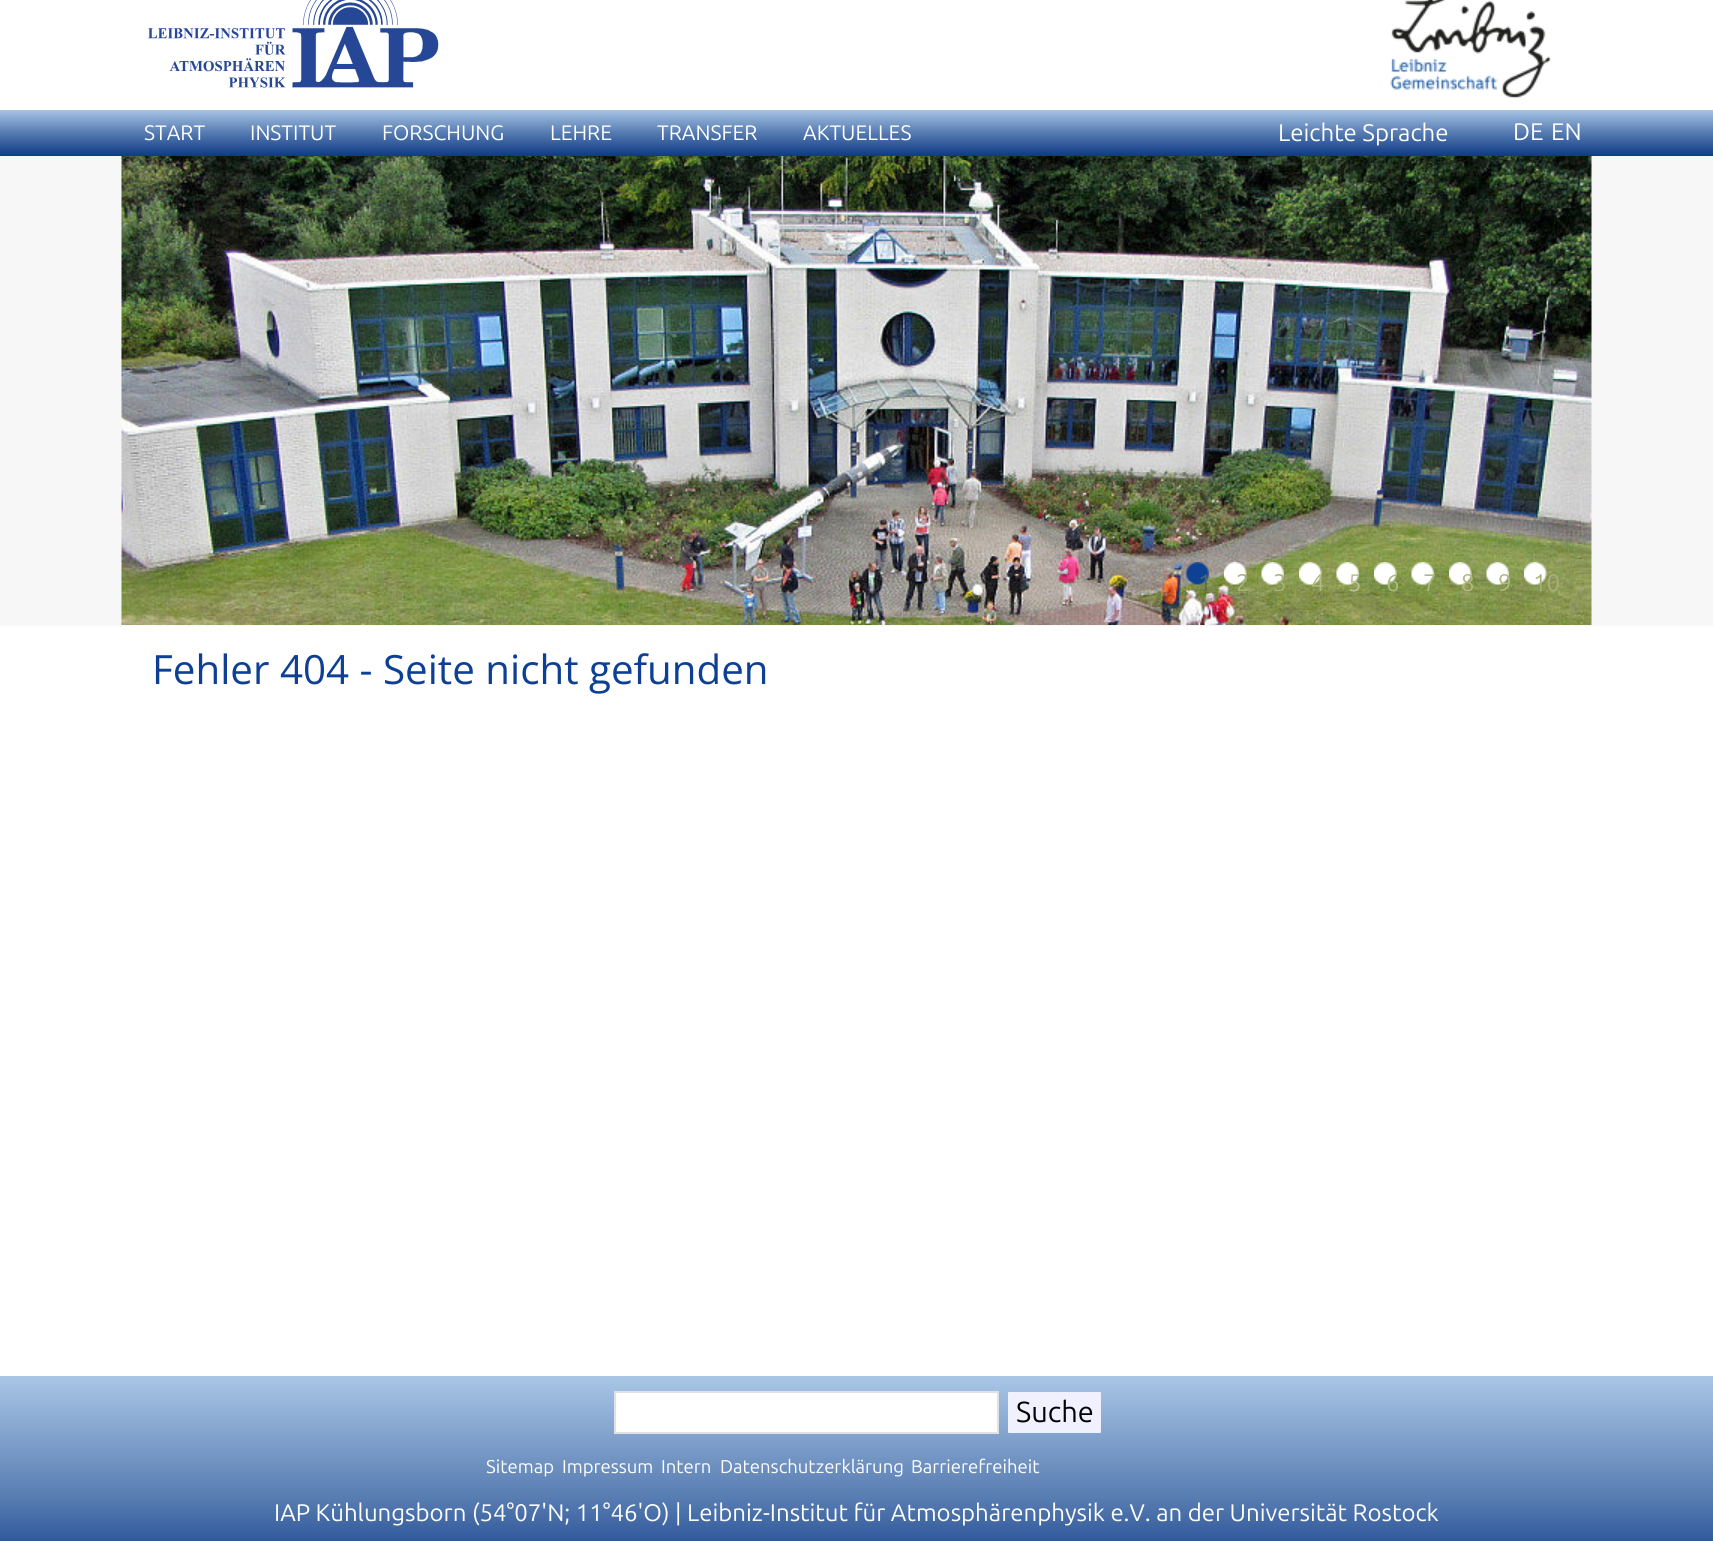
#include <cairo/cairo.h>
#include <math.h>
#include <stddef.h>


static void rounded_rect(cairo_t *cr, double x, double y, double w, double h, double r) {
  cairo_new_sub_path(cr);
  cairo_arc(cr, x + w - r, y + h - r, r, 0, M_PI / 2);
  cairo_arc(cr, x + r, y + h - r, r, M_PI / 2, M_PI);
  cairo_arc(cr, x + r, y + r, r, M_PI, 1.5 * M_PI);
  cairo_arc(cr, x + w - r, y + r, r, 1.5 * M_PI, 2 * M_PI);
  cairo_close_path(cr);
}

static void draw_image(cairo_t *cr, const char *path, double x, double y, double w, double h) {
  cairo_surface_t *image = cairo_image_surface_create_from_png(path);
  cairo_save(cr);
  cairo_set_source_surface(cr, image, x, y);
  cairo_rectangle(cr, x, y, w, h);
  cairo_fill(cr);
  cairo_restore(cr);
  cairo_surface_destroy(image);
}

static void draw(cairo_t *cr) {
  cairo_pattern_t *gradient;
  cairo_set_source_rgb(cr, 1, 1, 1);
  cairo_paint(cr);
  draw_image(cr, "images/1.png", 148, 0, 291, 88);
  draw_image(cr, "images/2.png", 1390, 0, 162, 99);
  cairo_set_source_rgb(cr, 247 / 255.0, 247 / 255.0, 248 / 255.0);
  cairo_rectangle(cr, 0, 156, 1713, 470);
  cairo_fill(cr);
  gradient = cairo_pattern_create_linear(857, 109, 857, 156);
  cairo_pattern_add_color_stop_rgba(gradient, 0, 170 / 255.0, 199 / 255.0, 231 / 255.0, 1);
  cairo_pattern_add_color_stop_rgba(gradient, 0.5, 87 / 255.0, 124 / 255.0, 178 / 255.0, 1);
  cairo_pattern_add_color_stop_rgba(gradient, 1, 14 / 255.0, 58 / 255.0, 133 / 255.0, 1);
  cairo_set_source(cr, gradient);
  cairo_pattern_destroy(gradient);
  cairo_rectangle(cr, 0, 110, 1713, 46);
  cairo_fill(cr);
  draw_image(cr, "images/3.png", 121, 156, 1471, 469);
  draw_image(cr, "images/4.png", 1186, 562, 23, 23);
  draw_image(cr, "images/5.png", 1224, 562, 23, 23);
  draw_image(cr, "images/6.png", 1261, 562, 23, 23);
  draw_image(cr, "images/7.png", 1299, 562, 23, 23);
  draw_image(cr, "images/8.png", 1336, 562, 23, 23);
  draw_image(cr, "images/9.png", 1374, 562, 23, 23);
  draw_image(cr, "images/10.png", 1411, 562, 23, 23);
  draw_image(cr, "images/11.png", 1449, 562, 23, 23);
  draw_image(cr, "images/12.png", 1486, 562, 23, 23);
  draw_image(cr, "images/13.png", 1524, 562, 23, 23);
  gradient = cairo_pattern_create_linear(857, 1375, 857, 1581);
  cairo_pattern_add_color_stop_rgba(gradient, 0, 170 / 255.0, 199 / 255.0, 231 / 255.0, 1);
  cairo_pattern_add_color_stop_rgba(gradient, 0.6, 87 / 255.0, 124 / 255.0, 178 / 255.0, 1);
  cairo_pattern_add_color_stop_rgba(gradient, 1, 14 / 255.0, 58 / 255.0, 133 / 255.0, 1);
  cairo_set_source(cr, gradient);
  cairo_pattern_destroy(gradient);
  cairo_rectangle(cr, 0, 1376, 1713, 165);
  cairo_fill(cr);
  cairo_set_source_rgb(cr, 1, 1, 1);
  cairo_rectangle(cr, 615, 1392, 383, 41);
  cairo_fill_preserve(cr);
  cairo_set_source_rgb(cr, 224 / 255.0, 225 / 255.0, 227 / 255.0);
  cairo_stroke(cr);
  cairo_set_source_rgb(cr, 240 / 255.0, 240 / 255.0, 1);
  rounded_rect(cr, 1008, 1392, 93, 41, 1);
  cairo_fill(cr);
  cairo_select_font_face(cr, "Ubuntu", CAIRO_FONT_SLANT_NORMAL, CAIRO_FONT_WEIGHT_NORMAL);
  cairo_set_font_size(cr, 21);
  cairo_set_source_rgb(cr, 1, 1, 1);
  cairo_move_to(cr, 144, 140);
  cairo_show_text(cr, "START");
  cairo_move_to(cr, 250, 140);
  cairo_show_text(cr, "INSTITUT");
  cairo_move_to(cr, 382, 140);
  cairo_show_text(cr, "FORSCHUNG");
  cairo_move_to(cr, 550, 140);
  cairo_show_text(cr, "LEHRE");
  cairo_move_to(cr, 657, 140);
  cairo_show_text(cr, "TRANSFER");
  cairo_move_to(cr, 803, 140);
  cairo_show_text(cr, "AKTUELLES");
  cairo_set_font_size(cr, 24);
  cairo_move_to(cr, 1278, 141);
  cairo_show_text(cr, "Leichte Sprache");
  cairo_move_to(cr, 1513, 140);
  cairo_show_text(cr, "DE");
  cairo_move_to(cr, 1551, 140);
  cairo_show_text(cr, "EN");
  cairo_set_source_rgb(cr, 77 / 255.0, 106 / 255.0, 107 / 255.0);
  cairo_move_to(cr, 1198, 591);
  cairo_show_text(cr, "1");
  cairo_set_source_rgb(cr, 165 / 255.0, 177 / 255.0, 123 / 255.0);
  cairo_move_to(cr, 1236, 591);
  cairo_show_text(cr, "2");
  cairo_move_to(cr, 1273, 591);
  cairo_show_text(cr, "3");
  cairo_set_source_rgb(cr, 177 / 255.0, 185 / 255.0, 135 / 255.0);
  cairo_move_to(cr, 1311, 591);
  cairo_show_text(cr, "4");
  cairo_set_source_rgb(cr, 184 / 255.0, 192 / 255.0, 149 / 255.0);
  cairo_move_to(cr, 1348, 591);
  cairo_show_text(cr, "5");
  cairo_set_source_rgb(cr, 169 / 255.0, 185 / 255.0, 133 / 255.0);
  cairo_move_to(cr, 1386, 591);
  cairo_show_text(cr, "6");
  cairo_move_to(cr, 1423, 591);
  cairo_show_text(cr, "7");
  cairo_set_source_rgb(cr, 177 / 255.0, 185 / 255.0, 135 / 255.0);
  cairo_move_to(cr, 1461, 591);
  cairo_show_text(cr, "8");
  cairo_move_to(cr, 1498, 591);
  cairo_show_text(cr, "9");
  cairo_set_source_rgb(cr, 165 / 255.0, 177 / 255.0, 123 / 255.0);
  cairo_move_to(cr, 1533, 591);
  cairo_show_text(cr, "10");
  cairo_select_font_face(cr, "Open Sans", CAIRO_FONT_SLANT_NORMAL, CAIRO_FONT_WEIGHT_NORMAL);
  cairo_set_font_size(cr, 40.3);
  cairo_set_source_rgb(cr, 13 / 255.0, 63 / 255.0, 148 / 255.0);
  cairo_move_to(cr, 152, 684);
  cairo_show_text(cr, "Fehler 404 - Seite nicht gefunden");
  cairo_select_font_face(cr, "Ubuntu", CAIRO_FONT_SLANT_NORMAL, CAIRO_FONT_WEIGHT_NORMAL);
  cairo_set_font_size(cr, 29);
  cairo_set_source_rgb(cr, 0, 0, 0);
  cairo_move_to(cr, 1016, 1422);
  cairo_show_text(cr, "Suche");
  cairo_set_font_size(cr, 18.5);
  cairo_set_source_rgb(cr, 1, 1, 1);
  cairo_move_to(cr, 486, 1473);
  cairo_show_text(cr, "Sitemap");
  cairo_move_to(cr, 562, 1473);
  cairo_show_text(cr, "Impressum");
  cairo_move_to(cr, 661, 1473);
  cairo_show_text(cr, "Intern");
  cairo_move_to(cr, 720, 1473);
  cairo_show_text(cr, "Datenschutzerklärung");
  cairo_move_to(cr, 911, 1473);
  cairo_show_text(cr, "Barrierefreiheit");
  cairo_set_font_size(cr, 24);
  cairo_move_to(cr, 274, 1521);
  cairo_show_text(cr, "IAP Kühlungsborn (54°07'N; 11°46'O) | Leibniz-Institut für Atmosphärenphysik e.V. an der Universität Rostock");
}

int main(void) {
  cairo_surface_t *surface = cairo_image_surface_create(CAIRO_FORMAT_RGB24, 1713, 1541);
  cairo_t *cr = cairo_create(surface);
  cairo_font_options_t *options = cairo_font_options_create();
  cairo_font_options_set_hint_metrics(options, CAIRO_HINT_METRICS_OFF);
  cairo_font_options_set_hint_style(options, CAIRO_HINT_STYLE_NONE);
  cairo_set_font_options(cr, options);
  cairo_set_miter_limit(cr, 4);
  draw(cr);
  cairo_surface_write_to_png(surface, "out.png");
  cairo_font_options_destroy(options);
  cairo_destroy(cr);
  cairo_surface_destroy(surface);
  return 0;
}
